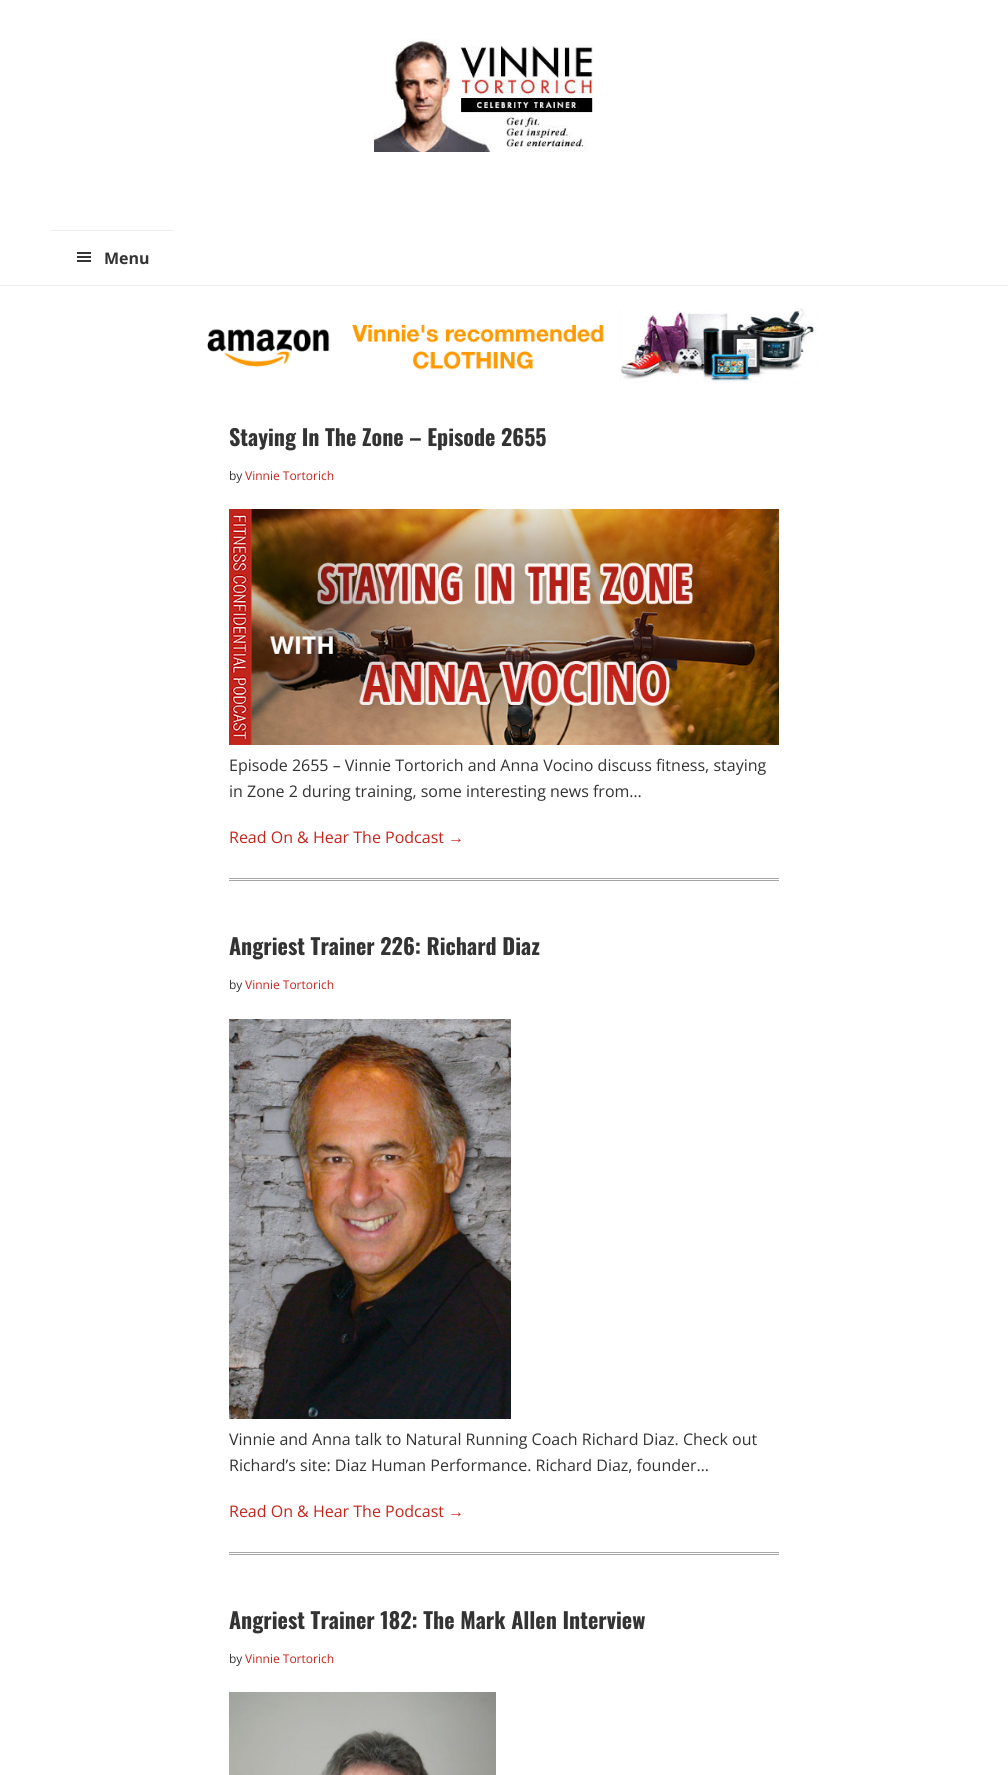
#include <cairo/cairo.h>
#include <math.h>
#include <stddef.h>


static void draw_image(cairo_t *cr, const char *path, double x, double y, double w, double h) {
  cairo_surface_t *image = cairo_image_surface_create_from_png(path);
  cairo_save(cr);
  cairo_set_source_surface(cr, image, x, y);
  cairo_rectangle(cr, x, y, w, h);
  cairo_fill(cr);
  cairo_restore(cr);
  cairo_surface_destroy(image);
}

static void draw(cairo_t *cr) {
  cairo_set_source_rgb(cr, 1, 1, 1);
  cairo_paint(cr);
  cairo_set_source_rgb(cr, 238 / 255.0, 238 / 255.0, 238 / 255.0);
  cairo_rectangle(cr, 0, 285, 1008, 1);
  cairo_fill(cr);
  draw_image(cr, "images/1.png", 374, 39, 219, 113);
  cairo_rectangle(cr, 50, 230, 124, 1);
  cairo_fill(cr);
  draw_image(cr, "images/2.png", 77, 252, 14, 10);
  draw_image(cr, "images/3.png", 207, 308, 612, 75);
  draw_image(cr, "images/4.png", 229, 509, 550, 236);
  cairo_set_source_rgb(cr, 167 / 255.0, 165 / 255.0, 165 / 255.0);
  cairo_rectangle(cr, 229, 878, 550, 1);
  cairo_fill(cr);
  cairo_rectangle(cr, 229, 880, 550, 1);
  cairo_fill(cr);
  draw_image(cr, "images/5.png", 229, 1019, 282, 400);
  cairo_rectangle(cr, 229, 1552, 550, 1);
  cairo_fill(cr);
  cairo_rectangle(cr, 229, 1554, 550, 1);
  cairo_fill(cr);
  draw_image(cr, "images/6.png", 229, 1692, 267, 83);
  cairo_select_font_face(cr, "Open Sans", CAIRO_FONT_SLANT_NORMAL, CAIRO_FONT_WEIGHT_BOLD);
  cairo_set_font_size(cr, 16);
  cairo_set_source_rgb(cr, 51 / 255.0, 51 / 255.0, 51 / 255.0);
  cairo_move_to(cr, 104, 264);
  cairo_show_text(cr, "Menu");
  cairo_select_font_face(cr, "Oswald", CAIRO_FONT_SLANT_NORMAL, CAIRO_FONT_WEIGHT_BOLD);
  cairo_set_font_size(cr, 22);
  cairo_move_to(cr, 229, 446);
  cairo_show_text(cr, "Staying In The Zone – Episode 2655");
  cairo_select_font_face(cr, "Open Sans", CAIRO_FONT_SLANT_NORMAL, CAIRO_FONT_WEIGHT_NORMAL);
  cairo_set_font_size(cr, 12);
  cairo_move_to(cr, 229, 480);
  cairo_show_text(cr, "by");
  cairo_set_source_rgb(cr, 195 / 255.0, 37 / 255.0, 29 / 255.0);
  cairo_move_to(cr, 245, 480);
  cairo_show_text(cr, "Vinnie Tortorich");
  cairo_set_font_size(cr, 16);
  cairo_set_source_rgb(cr, 51 / 255.0, 51 / 255.0, 51 / 255.0);
  cairo_move_to(cr, 229, 771);
  cairo_show_text(cr, "Episode 2655 – Vinnie Tortorich and Anna Vocino discuss fitness, staying");
  cairo_move_to(cr, 229, 797);
  cairo_show_text(cr, "in Zone 2 during training, some interesting news from…");
  cairo_set_source_rgb(cr, 195 / 255.0, 37 / 255.0, 29 / 255.0);
  cairo_move_to(cr, 229, 843);
  cairo_show_text(cr, "Read On & Hear The Podcast");
  cairo_select_font_face(cr, "Liberation Sans", CAIRO_FONT_SLANT_NORMAL, CAIRO_FONT_WEIGHT_NORMAL);
  cairo_move_to(cr, 448, 843);
  cairo_show_text(cr, "→");
  cairo_select_font_face(cr, "Oswald", CAIRO_FONT_SLANT_NORMAL, CAIRO_FONT_WEIGHT_BOLD);
  cairo_set_font_size(cr, 22);
  cairo_set_source_rgb(cr, 51 / 255.0, 51 / 255.0, 51 / 255.0);
  cairo_move_to(cr, 229, 955);
  cairo_show_text(cr, "Angriest Trainer 226: Richard Diaz");
  cairo_select_font_face(cr, "Open Sans", CAIRO_FONT_SLANT_NORMAL, CAIRO_FONT_WEIGHT_NORMAL);
  cairo_set_font_size(cr, 12);
  cairo_move_to(cr, 229, 989);
  cairo_show_text(cr, "by");
  cairo_set_source_rgb(cr, 195 / 255.0, 37 / 255.0, 29 / 255.0);
  cairo_move_to(cr, 245, 989);
  cairo_show_text(cr, "Vinnie Tortorich");
  cairo_set_font_size(cr, 16);
  cairo_set_source_rgb(cr, 51 / 255.0, 51 / 255.0, 51 / 255.0);
  cairo_move_to(cr, 229, 1445);
  cairo_show_text(cr, "Vinnie and Anna talk to Natural Running Coach Richard Diaz. Check out");
  cairo_move_to(cr, 229, 1471);
  cairo_show_text(cr, "Richard’s site: Diaz Human Performance. Richard Diaz, founder…");
  cairo_set_source_rgb(cr, 195 / 255.0, 37 / 255.0, 29 / 255.0);
  cairo_move_to(cr, 229, 1517);
  cairo_show_text(cr, "Read On & Hear The Podcast");
  cairo_select_font_face(cr, "Liberation Sans", CAIRO_FONT_SLANT_NORMAL, CAIRO_FONT_WEIGHT_NORMAL);
  cairo_move_to(cr, 448, 1517);
  cairo_show_text(cr, "→");
  cairo_select_font_face(cr, "Oswald", CAIRO_FONT_SLANT_NORMAL, CAIRO_FONT_WEIGHT_BOLD);
  cairo_set_font_size(cr, 22);
  cairo_set_source_rgb(cr, 51 / 255.0, 51 / 255.0, 51 / 255.0);
  cairo_move_to(cr, 229, 1629);
  cairo_show_text(cr, "Angriest Trainer 182: The Mark Allen Interview");
  cairo_select_font_face(cr, "Open Sans", CAIRO_FONT_SLANT_NORMAL, CAIRO_FONT_WEIGHT_NORMAL);
  cairo_set_font_size(cr, 12);
  cairo_move_to(cr, 229, 1663);
  cairo_show_text(cr, "by");
  cairo_set_source_rgb(cr, 195 / 255.0, 37 / 255.0, 29 / 255.0);
  cairo_move_to(cr, 245, 1663);
  cairo_show_text(cr, "Vinnie Tortorich");
}

int main(void) {
  cairo_surface_t *surface = cairo_image_surface_create(CAIRO_FORMAT_RGB24, 1008, 1775);
  cairo_t *cr = cairo_create(surface);
  cairo_font_options_t *options = cairo_font_options_create();
  cairo_font_options_set_hint_metrics(options, CAIRO_HINT_METRICS_OFF);
  cairo_font_options_set_hint_style(options, CAIRO_HINT_STYLE_NONE);
  cairo_set_font_options(cr, options);
  cairo_set_miter_limit(cr, 4);
  draw(cr);
  cairo_surface_write_to_png(surface, "out.png");
  cairo_font_options_destroy(options);
  cairo_destroy(cr);
  cairo_surface_destroy(surface);
  return 0;
}
